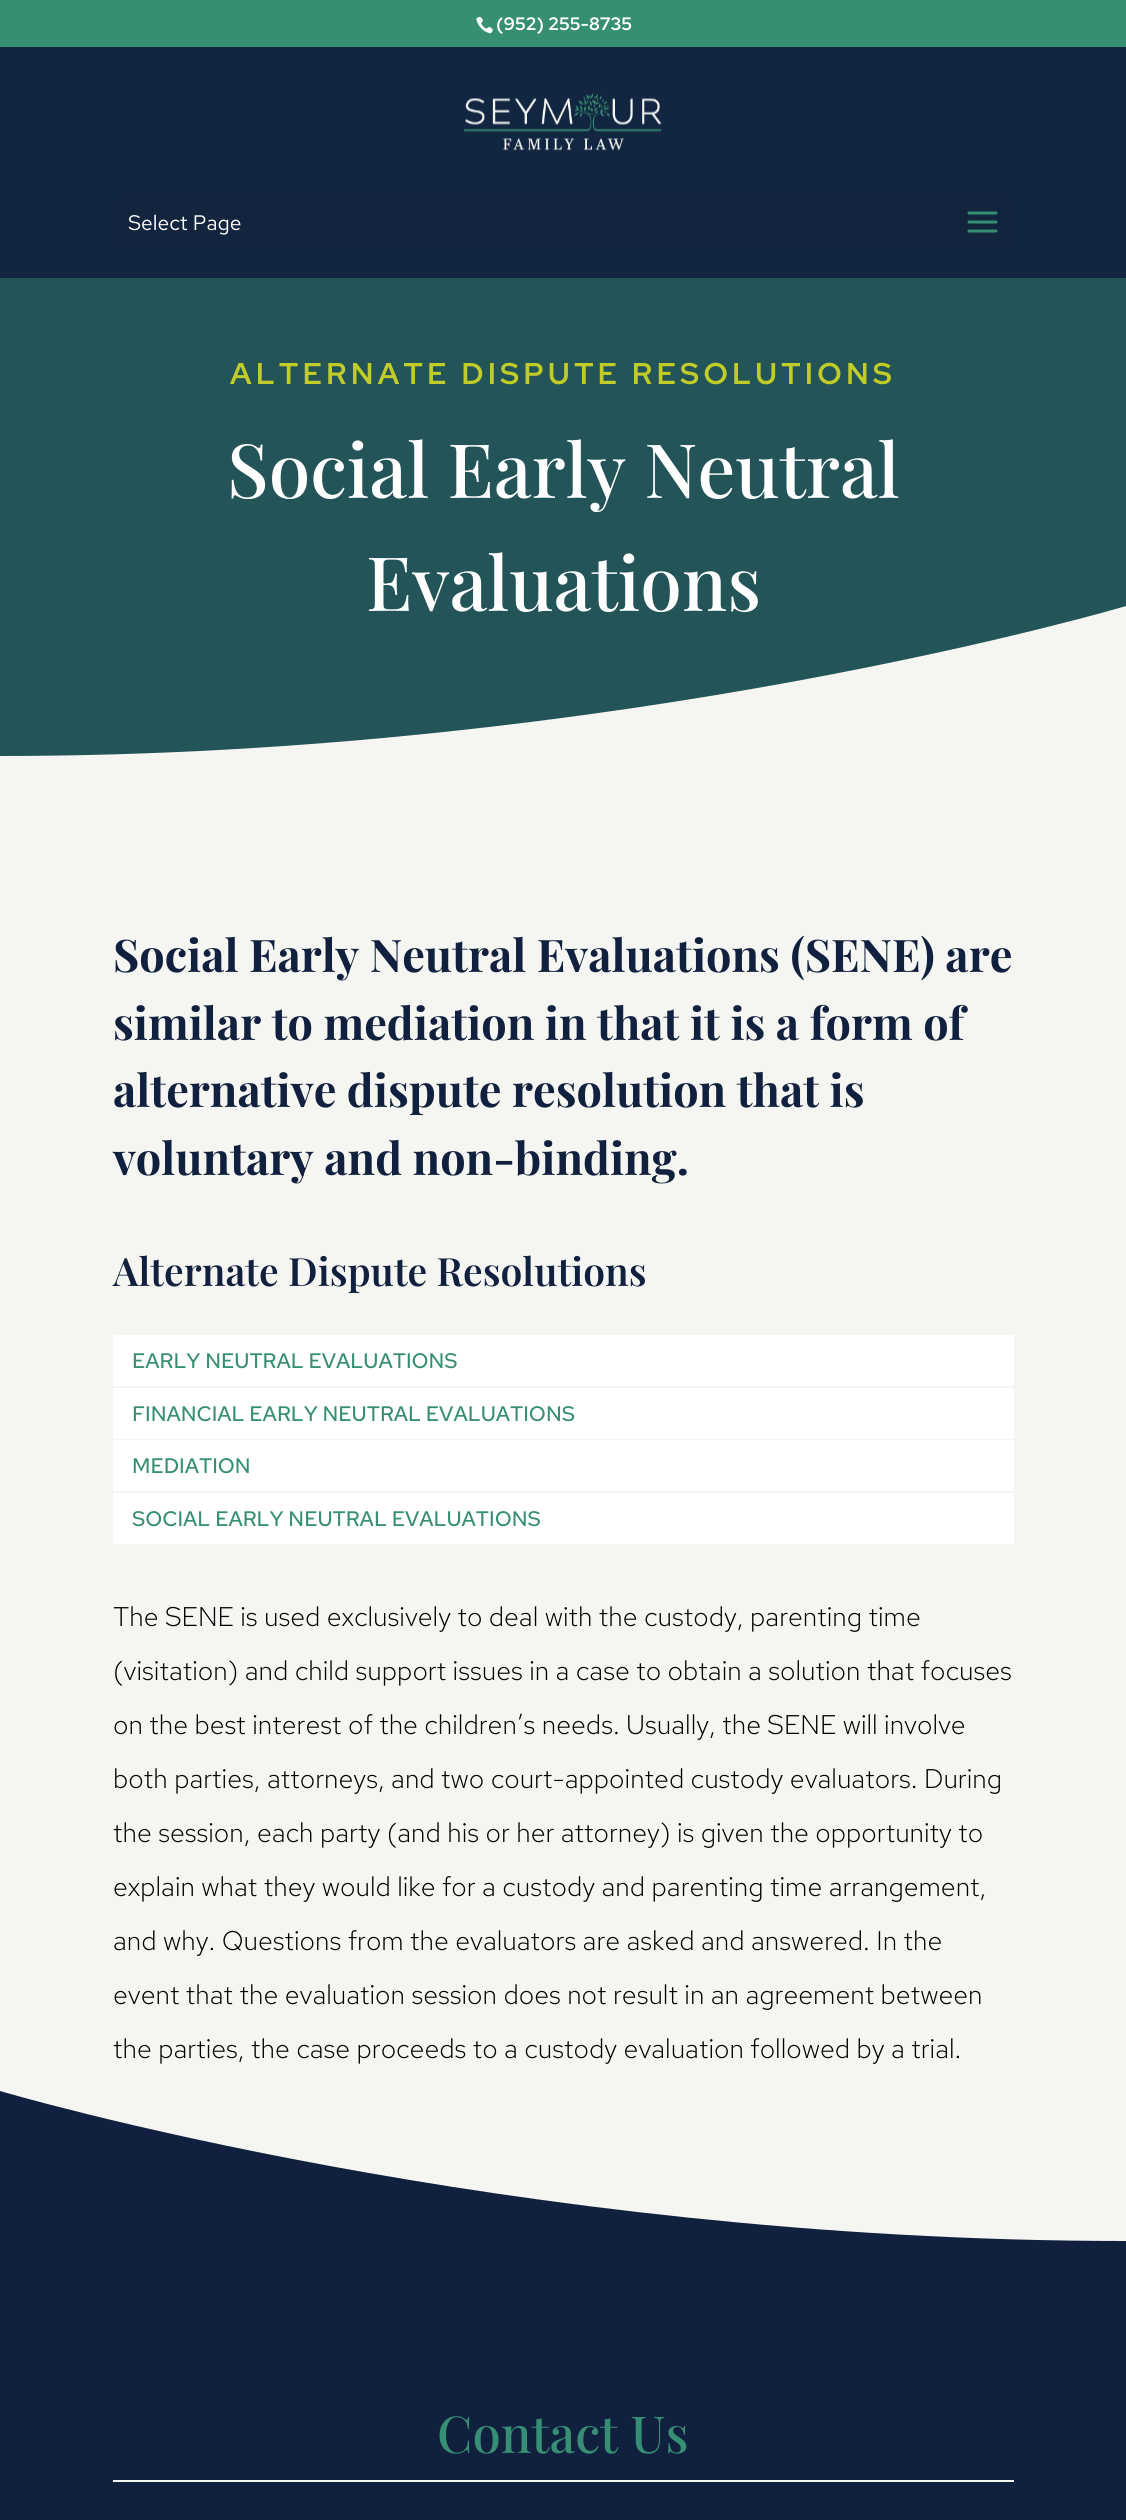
#include <cairo/cairo.h>
#include <math.h>
#include <stddef.h>


static void draw_spaced(cairo_t *cr, double x, double y, const char *s, double letter, double word) {
  cairo_move_to(cr, x, y);
  while (*s) {
    char ch[5] = {0};
    int n = 0;
    do ch[n++] = *s++; while ((*s & 0xC0) == 0x80);
    cairo_show_text(cr, ch);
    cairo_rel_move_to(cr, letter + word * (*ch == ' '), 0);
  }
}

static void rounded_rect(cairo_t *cr, double x, double y, double w, double h, double r) {
  cairo_new_sub_path(cr);
  cairo_arc(cr, x + w - r, y + h - r, r, 0, M_PI / 2);
  cairo_arc(cr, x + r, y + h - r, r, M_PI / 2, M_PI);
  cairo_arc(cr, x + r, y + r, r, M_PI, 1.5 * M_PI);
  cairo_arc(cr, x + w - r, y + r, r, 1.5 * M_PI, 2 * M_PI);
  cairo_close_path(cr);
}

static void draw_image(cairo_t *cr, const char *path, double x, double y, double w, double h) {
  cairo_surface_t *image = cairo_image_surface_create_from_png(path);
  cairo_save(cr);
  cairo_set_source_surface(cr, image, x, y);
  cairo_rectangle(cr, x, y, w, h);
  cairo_fill(cr);
  cairo_restore(cr);
  cairo_surface_destroy(image);
}

static void draw(cairo_t *cr) {
  cairo_set_source_rgb(cr, 35 / 255.0, 84 / 255.0, 87 / 255.0);
  cairo_paint(cr);
  cairo_set_source_rgb(cr, 54 / 255.0, 142 / 255.0, 115 / 255.0);
  cairo_rectangle(cr, 0, 0, 1126, 47);
  cairo_fill(cr);
  draw_image(cr, "images/1.png", 476, 16, 17, 18);
  cairo_set_source_rgb(cr, 19 / 255.0, 38 / 255.0, 65 / 255.0);
  cairo_rectangle(cr, 0, 47, 1126, 231);
  cairo_fill(cr);
  draw_image(cr, "images/2.png", 464, 93, 198, 58);
  cairo_set_source_rgb(cr, 18 / 255.0, 36 / 255.0, 62 / 255.0);
  rounded_rect(cr, 113, 197, 901, 51, 8);
  cairo_fill(cr);
  draw_image(cr, "images/3.png", 967, 211, 31, 22);
  cairo_set_source_rgb(cr, 245 / 255.0, 245 / 255.0, 241 / 255.0);
  cairo_rectangle(cr, 0, 756, 1126, 1485);
  cairo_fill(cr);
  cairo_set_source_rgb(cr, 1, 1, 1);
  cairo_rectangle(cr, 113, 1335, 901, 51);
  cairo_fill(cr);
  cairo_rectangle(cr, 113, 1388, 901, 51);
  cairo_fill(cr);
  cairo_rectangle(cr, 113, 1440, 901, 51);
  cairo_fill(cr);
  cairo_rectangle(cr, 113, 1493, 901, 51);
  cairo_fill(cr);
  cairo_set_source_rgb(cr, 17 / 255.0, 32 / 255.0, 62 / 255.0);
  cairo_new_path(cr);
  cairo_move_to(cr, 0, 2241);
  cairo_line_to(cr, 1126, 2241);
  cairo_curve_to(cr, 504, 2241, 0, 2091, 0, 2091);
  cairo_close_path(cr);
  cairo_fill(cr);
  cairo_rectangle(cr, 0, 2241, 1126, 279);
  cairo_fill(cr);
  cairo_set_source_rgb(cr, 245 / 255.0, 245 / 255.0, 241 / 255.0);
  cairo_rectangle(cr, 113, 2480, 901, 2);
  cairo_fill(cr);
  cairo_select_font_face(cr, "Red Hat Text SemiBold", CAIRO_FONT_SLANT_NORMAL, CAIRO_FONT_WEIGHT_NORMAL);
  cairo_set_font_size(cr, 18);
  cairo_set_source_rgb(cr, 1, 1, 1);
  cairo_move_to(cr, 496, 30);
  cairo_show_text(cr, "(952) 255-8735");
  cairo_select_font_face(cr, "Red Hat Text", CAIRO_FONT_SLANT_NORMAL, CAIRO_FONT_WEIGHT_NORMAL);
  cairo_set_font_size(cr, 21);
  cairo_move_to(cr, 128, 230);
  cairo_show_text(cr, "Select Page");
  cairo_select_font_face(cr, "Red Hat Display", CAIRO_FONT_SLANT_NORMAL, CAIRO_FONT_WEIGHT_BOLD);
  cairo_set_font_size(cr, 30);
  cairo_set_source_rgb(cr, 193 / 255.0, 204 / 255.0, 41 / 255.0);
  draw_spaced(cr, 230, 384, "ALTERNATE DISPUTE RESOLUTIONS", 4.5, 0);
  cairo_select_font_face(cr, "Playfair Display Medium", CAIRO_FONT_SLANT_NORMAL, CAIRO_FONT_WEIGHT_NORMAL);
  cairo_set_font_size(cr, 75);
  cairo_set_source_rgb(cr, 1, 1, 1);
  cairo_move_to(cr, 227, 498);
  cairo_show_text(cr, "Social Early Neutral");
  cairo_move_to(cr, 366, 611);
  cairo_show_text(cr, "Evaluations");
  cairo_set_source_rgb(cr, 245 / 255.0, 245 / 255.0, 241 / 255.0);
  cairo_new_path(cr);
  cairo_move_to(cr, 1126, 756);
  cairo_line_to(cr, 0, 756);
  cairo_curve_to(cr, 622, 756, 1126, 606, 1126, 606);
  cairo_close_path(cr);
  cairo_fill(cr);
  cairo_select_font_face(cr, "Playfair Display", CAIRO_FONT_SLANT_NORMAL, CAIRO_FONT_WEIGHT_BOLD);
  cairo_set_font_size(cr, 45);
  cairo_set_source_rgb(cr, 17 / 255.0, 32 / 255.0, 62 / 255.0);
  cairo_move_to(cr, 113, 972);
  cairo_show_text(cr, "Social Early Neutral Evaluations (SENE) are");
  cairo_move_to(cr, 113, 1040);
  cairo_show_text(cr, "similar to mediation in that it is a form of");
  cairo_move_to(cr, 113, 1107);
  cairo_show_text(cr, "alternative dispute resolution that is");
  cairo_move_to(cr, 113, 1175);
  cairo_show_text(cr, "voluntary and non-binding.");
  cairo_select_font_face(cr, "Playfair Display SemiBold", CAIRO_FONT_SLANT_NORMAL, CAIRO_FONT_WEIGHT_NORMAL);
  cairo_set_font_size(cr, 39);
  cairo_move_to(cr, 113, 1286);
  cairo_show_text(cr, "Alternate Dispute Resolutions");
  cairo_select_font_face(cr, "Red Hat Text Medium", CAIRO_FONT_SLANT_NORMAL, CAIRO_FONT_WEIGHT_NORMAL);
  cairo_set_font_size(cr, 21);
  cairo_set_source_rgb(cr, 54 / 255.0, 142 / 255.0, 115 / 255.0);
  cairo_move_to(cr, 132, 1368);
  cairo_show_text(cr, "EARLY NEUTRAL EVALUATIONS");
  cairo_move_to(cr, 132, 1421);
  cairo_show_text(cr, "FINANCIAL EARLY NEUTRAL EVALUATIONS");
  cairo_move_to(cr, 132, 1473);
  cairo_show_text(cr, "MEDIATION");
  cairo_move_to(cr, 132, 1526);
  cairo_show_text(cr, "SOCIAL EARLY NEUTRAL EVALUATIONS");
  cairo_select_font_face(cr, "Red Hat Text Light", CAIRO_FONT_SLANT_NORMAL, CAIRO_FONT_WEIGHT_NORMAL);
  cairo_set_font_size(cr, 27);
  cairo_set_source_rgb(cr, 0, 0, 0);
  cairo_move_to(cr, 113, 1626);
  cairo_show_text(cr, "The SENE is used exclusively to deal with the custody, parenting time");
  cairo_move_to(cr, 113, 1680);
  cairo_show_text(cr, "(visitation) and child support issues in a case to obtain a solution that focuses");
  cairo_move_to(cr, 113, 1734);
  cairo_show_text(cr, "on the best interest of the children’s needs. Usually, the SENE will involve");
  cairo_move_to(cr, 113, 1788);
  cairo_show_text(cr, "both parties, attorneys, and two court-appointed custody evaluators. During");
  cairo_move_to(cr, 113, 1842);
  cairo_show_text(cr, "the session, each party (and his or her attorney) is given the opportunity to");
  cairo_move_to(cr, 113, 1896);
  cairo_show_text(cr, "explain what they would like for a custody and parenting time arrangement,");
  cairo_move_to(cr, 113, 1950);
  cairo_show_text(cr, "and why. Questions from the evaluators are asked and answered. In the");
  cairo_move_to(cr, 113, 2004);
  cairo_show_text(cr, "event that the evaluation session does not result in an agreement between");
  cairo_move_to(cr, 113, 2058);
  cairo_show_text(cr, "the parties, the case proceeds to a custody evaluation followed by a trial.");
  cairo_select_font_face(cr, "Playfair Display Medium", CAIRO_FONT_SLANT_NORMAL, CAIRO_FONT_WEIGHT_NORMAL);
  cairo_set_font_size(cr, 51);
  cairo_set_source_rgb(cr, 54 / 255.0, 142 / 255.0, 115 / 255.0);
  cairo_move_to(cr, 437, 2453);
  cairo_show_text(cr, "Contact Us");
}

int main(void) {
  cairo_surface_t *surface = cairo_image_surface_create(CAIRO_FORMAT_RGB24, 1126, 2520);
  cairo_t *cr = cairo_create(surface);
  cairo_font_options_t *options = cairo_font_options_create();
  cairo_font_options_set_hint_metrics(options, CAIRO_HINT_METRICS_OFF);
  cairo_font_options_set_hint_style(options, CAIRO_HINT_STYLE_NONE);
  cairo_set_font_options(cr, options);
  cairo_set_miter_limit(cr, 4);
  draw(cr);
  cairo_surface_write_to_png(surface, "out.png");
  cairo_font_options_destroy(options);
  cairo_destroy(cr);
  cairo_surface_destroy(surface);
  return 0;
}
